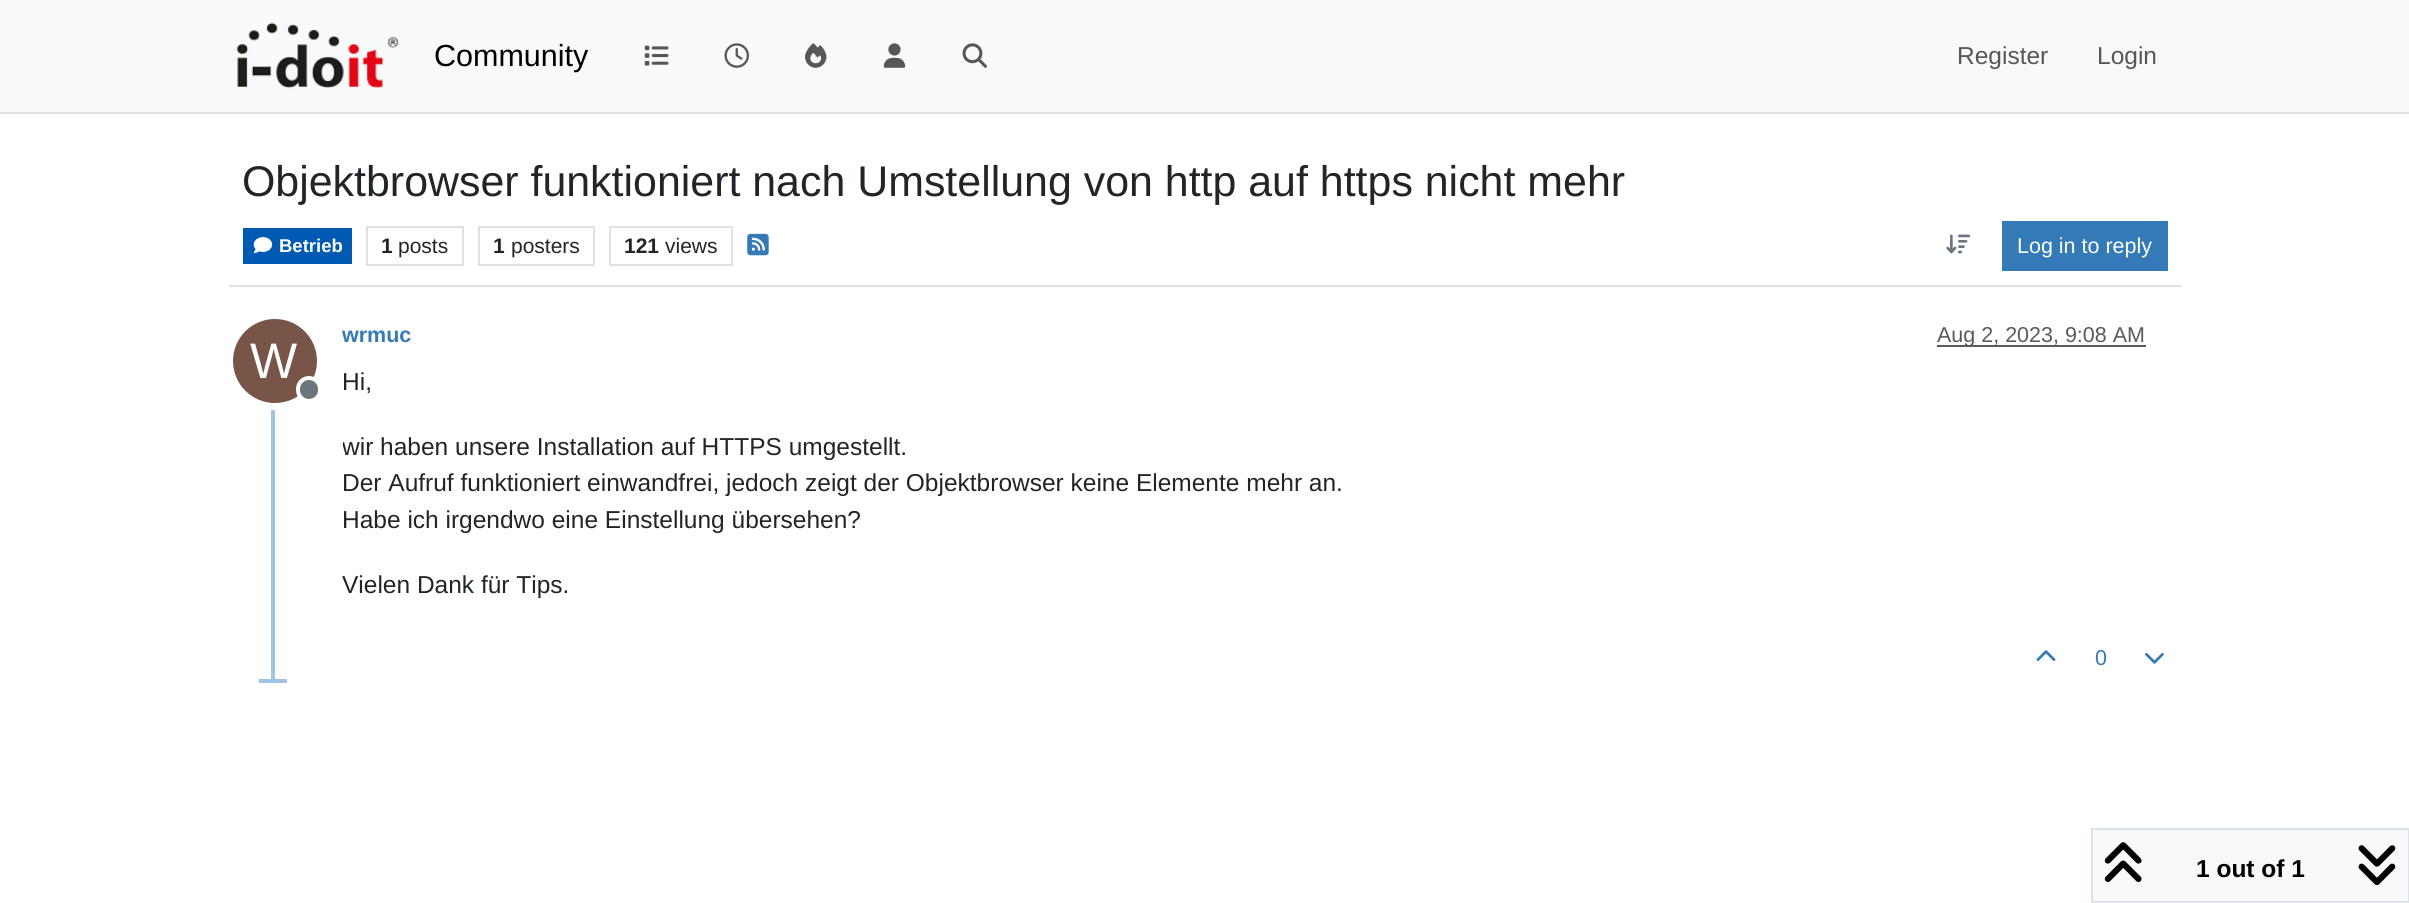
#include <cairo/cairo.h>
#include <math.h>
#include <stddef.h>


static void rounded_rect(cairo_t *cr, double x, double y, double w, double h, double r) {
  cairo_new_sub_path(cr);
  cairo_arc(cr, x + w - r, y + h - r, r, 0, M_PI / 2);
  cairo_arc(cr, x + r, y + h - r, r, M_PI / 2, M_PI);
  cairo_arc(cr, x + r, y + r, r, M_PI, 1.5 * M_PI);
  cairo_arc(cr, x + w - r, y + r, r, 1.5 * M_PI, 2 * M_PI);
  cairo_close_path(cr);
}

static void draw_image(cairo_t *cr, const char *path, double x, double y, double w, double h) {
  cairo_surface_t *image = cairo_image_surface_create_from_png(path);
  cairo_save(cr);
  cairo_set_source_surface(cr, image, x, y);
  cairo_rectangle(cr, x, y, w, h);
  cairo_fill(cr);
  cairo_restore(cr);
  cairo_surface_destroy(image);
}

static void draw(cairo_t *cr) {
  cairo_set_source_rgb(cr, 1, 1, 1);
  cairo_paint(cr);
  cairo_set_source_rgb(cr, 248 / 255.0, 249 / 255.0, 250 / 255.0);
  cairo_rectangle(cr, 0, 0, 2409, 112);
  cairo_fill(cr);
  cairo_set_source_rgb(cr, 222 / 255.0, 226 / 255.0, 230 / 255.0);
  cairo_rectangle(cr, 0, 112, 2409, 2);
  cairo_fill(cr);
  draw_image(cr, "images/1.png", 236, 22, 163, 67);
  draw_image(cr, "images/2.png", 644, 45, 25, 21);
  draw_image(cr, "images/3.png", 724, 43, 25, 25);
  draw_image(cr, "images/4.png", 805, 43, 22, 25);
  draw_image(cr, "images/5.png", 883, 43, 23, 25);
  draw_image(cr, "images/6.png", 962, 43, 25, 25);
  cairo_rectangle(cr, 229, 285, 1953, 2);
  cairo_fill(cr);
  cairo_set_source_rgb(cr, 0, 89 / 255.0, 178 / 255.0);
  cairo_rectangle(cr, 243, 228, 109, 36);
  cairo_fill(cr);
  draw_image(cr, "images/7.png", 253, 237, 20, 17);
  cairo_rectangle(cr, 367, 227, 96, 38);
  cairo_set_source_rgb(cr, 222 / 255.0, 226 / 255.0, 230 / 255.0);
  cairo_stroke(cr);
  cairo_rectangle(cr, 479, 227, 115, 38);
  cairo_stroke(cr);
  cairo_rectangle(cr, 610, 227, 122, 38);
  cairo_stroke(cr);
  draw_image(cr, "images/8.png", 747, 233, 22, 23);
  draw_image(cr, "images/9.png", 1946, 234, 25, 20);
  cairo_set_source_rgb(cr, 51 / 255.0, 122 / 255.0, 183 / 255.0);
  cairo_rectangle(cr, 2002, 221, 166, 50);
  cairo_fill(cr);
  cairo_set_source_rgb(cr, 160 / 255.0, 196 / 255.0, 228 / 255.0);
  cairo_rectangle(cr, 271, 315, 4, 368);
  cairo_fill(cr);
  cairo_set_source_rgb(cr, 89 / 255.0, 92 / 255.0, 95 / 255.0);
  cairo_rectangle(cr, 1937, 345, 209, 2);
  cairo_fill(cr);
  cairo_arc(cr, 275, 361, 45.5, 0, 2 * M_PI);
  cairo_set_source_rgb(cr, 1, 1, 1);
  cairo_set_line_width(cr, 7);
  cairo_stroke(cr);
  cairo_set_source_rgb(cr, 121 / 255.0, 85 / 255.0, 72 / 255.0);
  cairo_arc(cr, 275, 361, 42, 0, 2 * M_PI);
  cairo_fill(cr);
  draw_image(cr, "images/10.png", 2036, 650, 20, 11);
  draw_image(cr, "images/11.png", 2145, 653, 19, 11);
  cairo_set_source_rgb(cr, 160 / 255.0, 196 / 255.0, 228 / 255.0);
  cairo_rectangle(cr, 259, 679, 28, 4);
  cairo_fill(cr);
  cairo_set_source_rgb(cr, 248 / 255.0, 249 / 255.0, 250 / 255.0);
  cairo_rectangle(cr, 2092, 829, 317, 73);
  cairo_fill_preserve(cr);
  cairo_set_source_rgb(cr, 222 / 255.0, 226 / 255.0, 230 / 255.0);
  cairo_set_line_width(cr, 2);
  cairo_stroke(cr);
  draw_image(cr, "images/12.png", 2104, 842, 38, 40);
  draw_image(cr, "images/13.png", 2358, 845, 38, 40);
  cairo_select_font_face(cr, "Liberation Sans", CAIRO_FONT_SLANT_NORMAL, CAIRO_FONT_WEIGHT_NORMAL);
  cairo_set_font_size(cr, 30.5);
  cairo_set_source_rgb(cr, 0, 0, 0);
  cairo_move_to(cr, 434, 66);
  cairo_show_text(cr, "Community");
  cairo_set_font_size(cr, 24.5);
  cairo_set_source_rgb(cr, 87 / 255.0, 87 / 255.0, 88 / 255.0);
  cairo_move_to(cr, 1957, 64);
  cairo_show_text(cr, "Register");
  cairo_move_to(cr, 2097, 64);
  cairo_show_text(cr, "Login");
  cairo_set_font_size(cr, 42.9);
  cairo_set_source_rgb(cr, 33 / 255.0, 37 / 255.0, 41 / 255.0);
  cairo_move_to(cr, 242, 196);
  cairo_show_text(cr, "Objektbrowser funktioniert nach Umstellung von http auf https nicht mehr");
  cairo_select_font_face(cr, "Liberation Sans", CAIRO_FONT_SLANT_NORMAL, CAIRO_FONT_WEIGHT_BOLD);
  cairo_set_font_size(cr, 18.5);
  cairo_set_source_rgb(cr, 1, 1, 1);
  cairo_move_to(cr, 279, 252);
  cairo_show_text(cr, "Betrieb");
  cairo_set_font_size(cr, 21);
  cairo_set_source_rgb(cr, 33 / 255.0, 37 / 255.0, 41 / 255.0);
  cairo_move_to(cr, 381, 253);
  cairo_show_text(cr, "1");
  cairo_select_font_face(cr, "Liberation Sans", CAIRO_FONT_SLANT_NORMAL, CAIRO_FONT_WEIGHT_NORMAL);
  cairo_move_to(cr, 398, 253);
  cairo_show_text(cr, "posts");
  cairo_select_font_face(cr, "Liberation Sans", CAIRO_FONT_SLANT_NORMAL, CAIRO_FONT_WEIGHT_BOLD);
  cairo_move_to(cr, 493, 253);
  cairo_show_text(cr, "1");
  cairo_select_font_face(cr, "Liberation Sans", CAIRO_FONT_SLANT_NORMAL, CAIRO_FONT_WEIGHT_NORMAL);
  cairo_move_to(cr, 511, 253);
  cairo_show_text(cr, "posters");
  cairo_select_font_face(cr, "Liberation Sans", CAIRO_FONT_SLANT_NORMAL, CAIRO_FONT_WEIGHT_BOLD);
  cairo_move_to(cr, 624, 253);
  cairo_show_text(cr, "121");
  cairo_select_font_face(cr, "Liberation Sans", CAIRO_FONT_SLANT_NORMAL, CAIRO_FONT_WEIGHT_NORMAL);
  cairo_move_to(cr, 665, 253);
  cairo_show_text(cr, "views");
  cairo_set_font_size(cr, 21.5);
  cairo_set_source_rgb(cr, 1, 1, 1);
  cairo_move_to(cr, 2017, 253);
  cairo_show_text(cr, "Log in to reply");
  cairo_select_font_face(cr, "Liberation Sans", CAIRO_FONT_SLANT_NORMAL, CAIRO_FONT_WEIGHT_BOLD);
  cairo_set_source_rgb(cr, 51 / 255.0, 122 / 255.0, 183 / 255.0);
  cairo_move_to(cr, 342, 342);
  cairo_show_text(cr, "wrmuc");
  cairo_select_font_face(cr, "Liberation Sans", CAIRO_FONT_SLANT_NORMAL, CAIRO_FONT_WEIGHT_NORMAL);
  cairo_set_source_rgb(cr, 88 / 255.0, 91 / 255.0, 94 / 255.0);
  cairo_move_to(cr, 1937, 342);
  cairo_show_text(cr, "Aug 2, 2023, 9:08 AM");
  cairo_set_font_size(cr, 50);
  cairo_set_source_rgb(cr, 1, 1, 1);
  cairo_move_to(cr, 250, 378);
  cairo_show_text(cr, "W");
  cairo_set_source_rgb(cr, 108 / 255.0, 117 / 255.0, 125 / 255.0);
  rounded_rect(cr, 298, 378, 22, 23, 11);
  cairo_fill_preserve(cr);
  cairo_set_source_rgb(cr, 1, 1, 1);
  cairo_set_line_width(cr, 4);
  cairo_stroke(cr);
  cairo_set_font_size(cr, 24.5);
  cairo_set_source_rgb(cr, 33 / 255.0, 37 / 255.0, 41 / 255.0);
  cairo_move_to(cr, 342, 390);
  cairo_show_text(cr, "Hi,");
  cairo_save(cr);
  cairo_rectangle(cr, 343, 364, 1839, 270);
  cairo_clip(cr);
  cairo_move_to(cr, 342, 455);
  cairo_show_text(cr, "wir haben unsere Installation auf HTTPS umgestellt.");
  cairo_restore(cr);
  cairo_move_to(cr, 342, 491);
  cairo_show_text(cr, "Der Aufruf funktioniert einwandfrei, jedoch zeigt der Objektbrowser keine Elemente mehr an.");
  cairo_move_to(cr, 342, 528);
  cairo_show_text(cr, "Habe ich irgendwo eine Einstellung übersehen?");
  cairo_move_to(cr, 342, 593);
  cairo_show_text(cr, "Vielen Dank für Tips.");
  cairo_set_font_size(cr, 21.5);
  cairo_set_source_rgb(cr, 51 / 255.0, 122 / 255.0, 183 / 255.0);
  cairo_move_to(cr, 2095, 665);
  cairo_show_text(cr, "0");
  cairo_select_font_face(cr, "Liberation Sans", CAIRO_FONT_SLANT_NORMAL, CAIRO_FONT_WEIGHT_BOLD);
  cairo_set_font_size(cr, 24.5);
  cairo_set_source_rgb(cr, 0, 0, 0);
  cairo_move_to(cr, 2196, 877);
  cairo_show_text(cr, "1 out of 1");
}

int main(void) {
  cairo_surface_t *surface = cairo_image_surface_create(CAIRO_FORMAT_RGB24, 2409, 903);
  cairo_t *cr = cairo_create(surface);
  cairo_font_options_t *options = cairo_font_options_create();
  cairo_font_options_set_hint_metrics(options, CAIRO_HINT_METRICS_OFF);
  cairo_font_options_set_hint_style(options, CAIRO_HINT_STYLE_NONE);
  cairo_set_font_options(cr, options);
  cairo_set_miter_limit(cr, 4);
  draw(cr);
  cairo_surface_write_to_png(surface, "out.png");
  cairo_font_options_destroy(options);
  cairo_destroy(cr);
  cairo_surface_destroy(surface);
  return 0;
}
